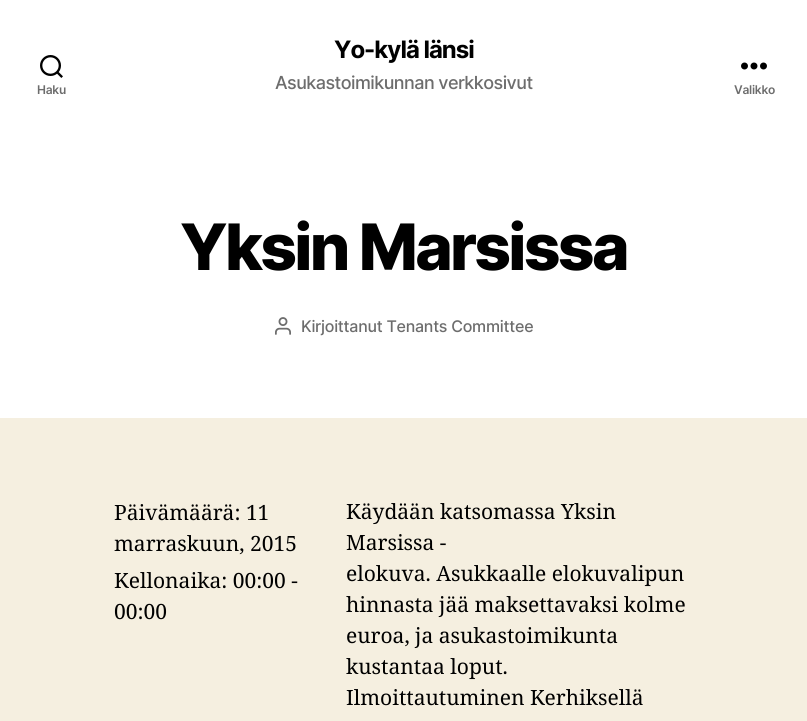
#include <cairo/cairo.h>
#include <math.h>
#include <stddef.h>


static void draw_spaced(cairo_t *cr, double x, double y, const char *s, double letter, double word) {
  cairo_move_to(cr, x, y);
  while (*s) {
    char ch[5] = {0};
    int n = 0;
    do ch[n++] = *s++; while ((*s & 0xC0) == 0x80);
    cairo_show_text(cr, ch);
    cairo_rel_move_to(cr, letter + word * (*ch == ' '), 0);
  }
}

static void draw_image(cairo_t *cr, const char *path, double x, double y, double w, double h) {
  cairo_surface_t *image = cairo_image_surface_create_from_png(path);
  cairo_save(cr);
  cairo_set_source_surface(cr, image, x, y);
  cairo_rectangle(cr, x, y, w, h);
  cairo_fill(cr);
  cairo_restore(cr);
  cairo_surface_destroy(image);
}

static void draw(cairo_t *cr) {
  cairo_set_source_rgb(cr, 245 / 255.0, 239 / 255.0, 224 / 255.0);
  cairo_paint(cr);
  cairo_set_source_rgb(cr, 1, 1, 1);
  cairo_rectangle(cr, 0, 0, 807, 418);
  cairo_fill(cr);
  draw_image(cr, "images/1.png", 40, 55, 23, 23);
  draw_image(cr, "images/2.png", 741, 62, 26, 8);
  draw_image(cr, "images/3.png", 275, 317, 16, 18);
  cairo_select_font_face(cr, "Inter SemiBold", CAIRO_FONT_SLANT_NORMAL, CAIRO_FONT_WEIGHT_NORMAL);
  cairo_set_font_size(cr, 12);
  cairo_set_source_rgb(cr, 109 / 255.0, 109 / 255.0, 109 / 255.0);
  draw_spaced(cr, 37, 94, "Haku", -0.25, 0);
  cairo_select_font_face(cr, "Inter", CAIRO_FONT_SLANT_NORMAL, CAIRO_FONT_WEIGHT_BOLD);
  cairo_set_font_size(cr, 24);
  cairo_set_source_rgb(cr, 0, 0, 0);
  draw_spaced(cr, 334, 58, "Yo-kylä länsi", -1, 0);
  cairo_select_font_face(cr, "Inter Medium", CAIRO_FONT_SLANT_NORMAL, CAIRO_FONT_WEIGHT_NORMAL);
  cairo_set_font_size(cr, 18);
  cairo_set_source_rgb(cr, 109 / 255.0, 109 / 255.0, 109 / 255.0);
  draw_spaced(cr, 275, 89, "Asukastoimikunnan verkkosivut", -0.55, 0);
  cairo_select_font_face(cr, "Inter SemiBold", CAIRO_FONT_SLANT_NORMAL, CAIRO_FONT_WEIGHT_NORMAL);
  cairo_set_font_size(cr, 12);
  draw_spaced(cr, 734, 94, "Valikko", -0.25, 0);
  cairo_select_font_face(cr, "Inter ExtraBold", CAIRO_FONT_SLANT_NORMAL, CAIRO_FONT_WEIGHT_NORMAL);
  cairo_set_font_size(cr, 64);
  cairo_set_source_rgb(cr, 0, 0, 0);
  draw_spaced(cr, 180, 270, "Yksin Marsissa", -2.7, 0);
  cairo_select_font_face(cr, "Inter Medium", CAIRO_FONT_SLANT_NORMAL, CAIRO_FONT_WEIGHT_NORMAL);
  cairo_set_font_size(cr, 16);
  cairo_set_source_rgb(cr, 109 / 255.0, 109 / 255.0, 109 / 255.0);
  draw_spaced(cr, 301, 332, "Kirjoittanut Tenants Committee", -0.25, 0);
  cairo_select_font_face(cr, "Noto Serif", CAIRO_FONT_SLANT_NORMAL, CAIRO_FONT_WEIGHT_NORMAL);
  cairo_set_font_size(cr, 21);
  cairo_set_source_rgb(cr, 0, 0, 0);
  cairo_move_to(cr, 114, 520);
  cairo_show_text(cr, "Päivämäärä: 11");
  cairo_move_to(cr, 114, 551);
  cairo_show_text(cr, "marraskuun, 2015");
  cairo_move_to(cr, 114, 588);
  cairo_show_text(cr, "Kellonaika: 00:00 -");
  cairo_move_to(cr, 114, 619);
  cairo_show_text(cr, "00:00");
  cairo_move_to(cr, 346, 519);
  cairo_show_text(cr, "Käydään katsomassa Yksin");
  cairo_move_to(cr, 346, 550);
  cairo_show_text(cr, "Marsissa -");
  cairo_move_to(cr, 346, 581);
  cairo_show_text(cr, "elokuva. Asukkaalle elokuvalipun");
  cairo_move_to(cr, 346, 612);
  cairo_show_text(cr, "hinnasta jää maksettavaksi kolme");
  cairo_move_to(cr, 346, 643);
  cairo_show_text(cr, "euroa, ja asukastoimikunta");
  cairo_move_to(cr, 346, 674);
  cairo_show_text(cr, "kustantaa loput.");
  cairo_move_to(cr, 346, 705);
  cairo_show_text(cr, "Ilmoittautuminen Kerhiksellä");
}

int main(void) {
  cairo_surface_t *surface = cairo_image_surface_create(CAIRO_FORMAT_RGB24, 807, 721);
  cairo_t *cr = cairo_create(surface);
  cairo_font_options_t *options = cairo_font_options_create();
  cairo_font_options_set_hint_metrics(options, CAIRO_HINT_METRICS_OFF);
  cairo_font_options_set_hint_style(options, CAIRO_HINT_STYLE_NONE);
  cairo_set_font_options(cr, options);
  cairo_set_miter_limit(cr, 4);
  draw(cr);
  cairo_surface_write_to_png(surface, "out.png");
  cairo_font_options_destroy(options);
  cairo_destroy(cr);
  cairo_surface_destroy(surface);
  return 0;
}
